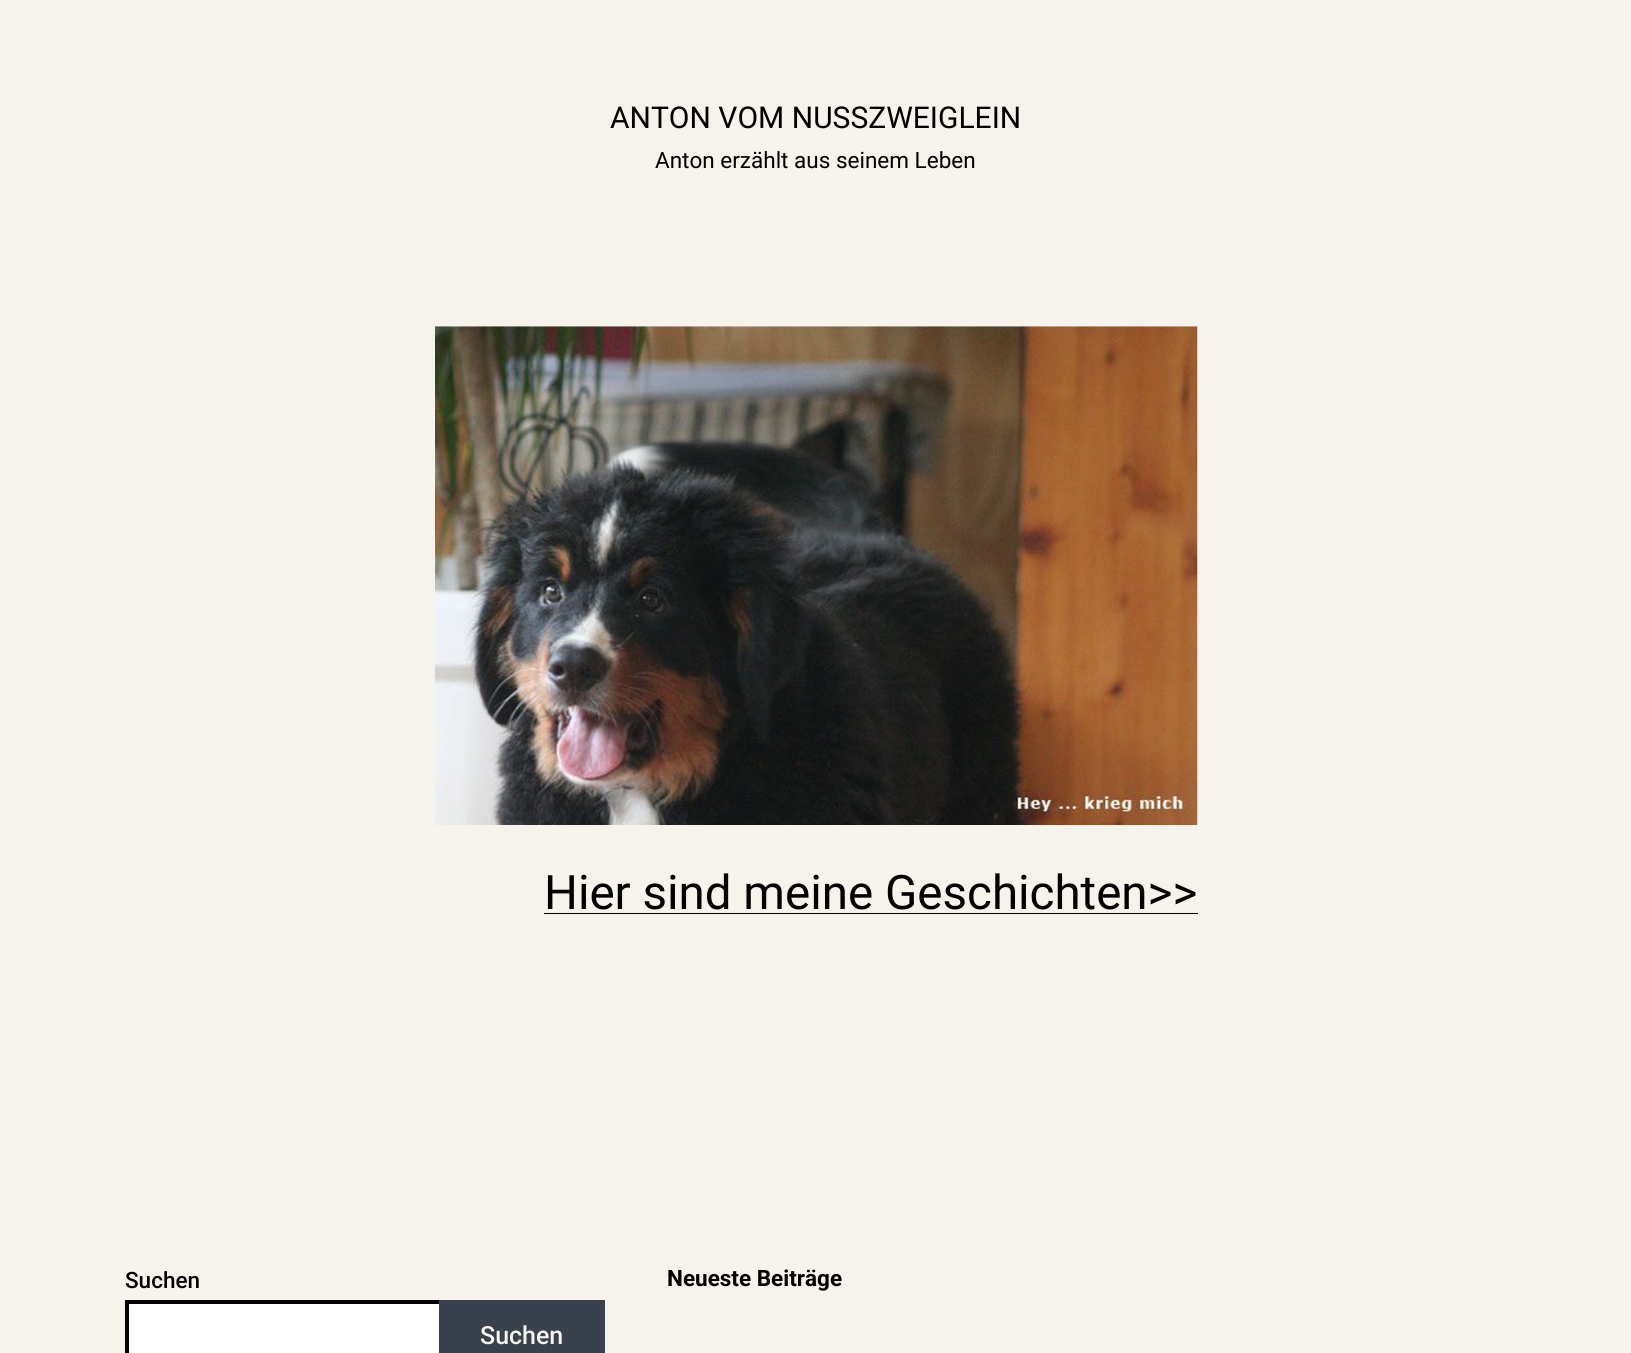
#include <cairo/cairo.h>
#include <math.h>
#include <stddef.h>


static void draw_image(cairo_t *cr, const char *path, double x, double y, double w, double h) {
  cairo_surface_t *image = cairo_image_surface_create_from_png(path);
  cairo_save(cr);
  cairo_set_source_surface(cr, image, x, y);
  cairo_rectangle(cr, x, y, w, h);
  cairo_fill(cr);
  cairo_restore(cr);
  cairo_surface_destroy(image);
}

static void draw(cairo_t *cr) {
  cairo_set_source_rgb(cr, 246 / 255.0, 242 / 255.0, 236 / 255.0);
  cairo_paint(cr);
  draw_image(cr, "images/1.png", 435, 326, 763, 499);
  cairo_set_source_rgb(cr, 0, 0, 0);
  cairo_rectangle(cr, 544, 913, 654, 1);
  cairo_fill(cr);
  cairo_set_source_rgb(cr, 1, 1, 1);
  cairo_rectangle(cr, 127, 1302, 314, 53);
  cairo_fill_preserve(cr);
  cairo_set_source_rgb(cr, 0, 0, 0);
  cairo_set_line_width(cr, 4);
  cairo_stroke(cr);
  cairo_set_source_rgb(cr, 57 / 255.0, 65 / 255.0, 77 / 255.0);
  cairo_rectangle(cr, 439, 1300, 166, 53);
  cairo_fill(cr);
  cairo_select_font_face(cr, "Roboto", CAIRO_FONT_SLANT_NORMAL, CAIRO_FONT_WEIGHT_NORMAL);
  cairo_set_font_size(cr, 30);
  cairo_set_source_rgb(cr, 0, 0, 0);
  cairo_move_to(cr, 610, 128);
  cairo_show_text(cr, "ANTON VOM NUSSZWEIGLEIN");
  cairo_set_font_size(cr, 22.5);
  cairo_move_to(cr, 655, 168);
  cairo_show_text(cr, "Anton erzählt aus seinem Leben");
  cairo_set_font_size(cr, 47.5);
  cairo_move_to(cr, 544, 909);
  cairo_show_text(cr, "Hier sind meine Geschichten>>");
  cairo_select_font_face(cr, "Roboto Medium", CAIRO_FONT_SLANT_NORMAL, CAIRO_FONT_WEIGHT_NORMAL);
  cairo_set_font_size(cr, 22.5);
  cairo_move_to(cr, 125, 1288);
  cairo_show_text(cr, "Suchen");
  cairo_set_font_size(cr, 25);
  cairo_set_source_rgb(cr, 246 / 255.0, 242 / 255.0, 236 / 255.0);
  cairo_move_to(cr, 480, 1344);
  cairo_show_text(cr, "Suchen");
  cairo_select_font_face(cr, "Roboto", CAIRO_FONT_SLANT_NORMAL, CAIRO_FONT_WEIGHT_BOLD);
  cairo_set_font_size(cr, 22.5);
  cairo_set_source_rgb(cr, 0, 0, 0);
  cairo_move_to(cr, 667, 1286);
  cairo_show_text(cr, "Neueste Beiträge");
}

int main(void) {
  cairo_surface_t *surface = cairo_image_surface_create(CAIRO_FORMAT_RGB24, 1631, 1353);
  cairo_t *cr = cairo_create(surface);
  cairo_font_options_t *options = cairo_font_options_create();
  cairo_font_options_set_hint_metrics(options, CAIRO_HINT_METRICS_OFF);
  cairo_font_options_set_hint_style(options, CAIRO_HINT_STYLE_NONE);
  cairo_set_font_options(cr, options);
  cairo_set_miter_limit(cr, 4);
  draw(cr);
  cairo_surface_write_to_png(surface, "out.png");
  cairo_font_options_destroy(options);
  cairo_destroy(cr);
  cairo_surface_destroy(surface);
  return 0;
}
